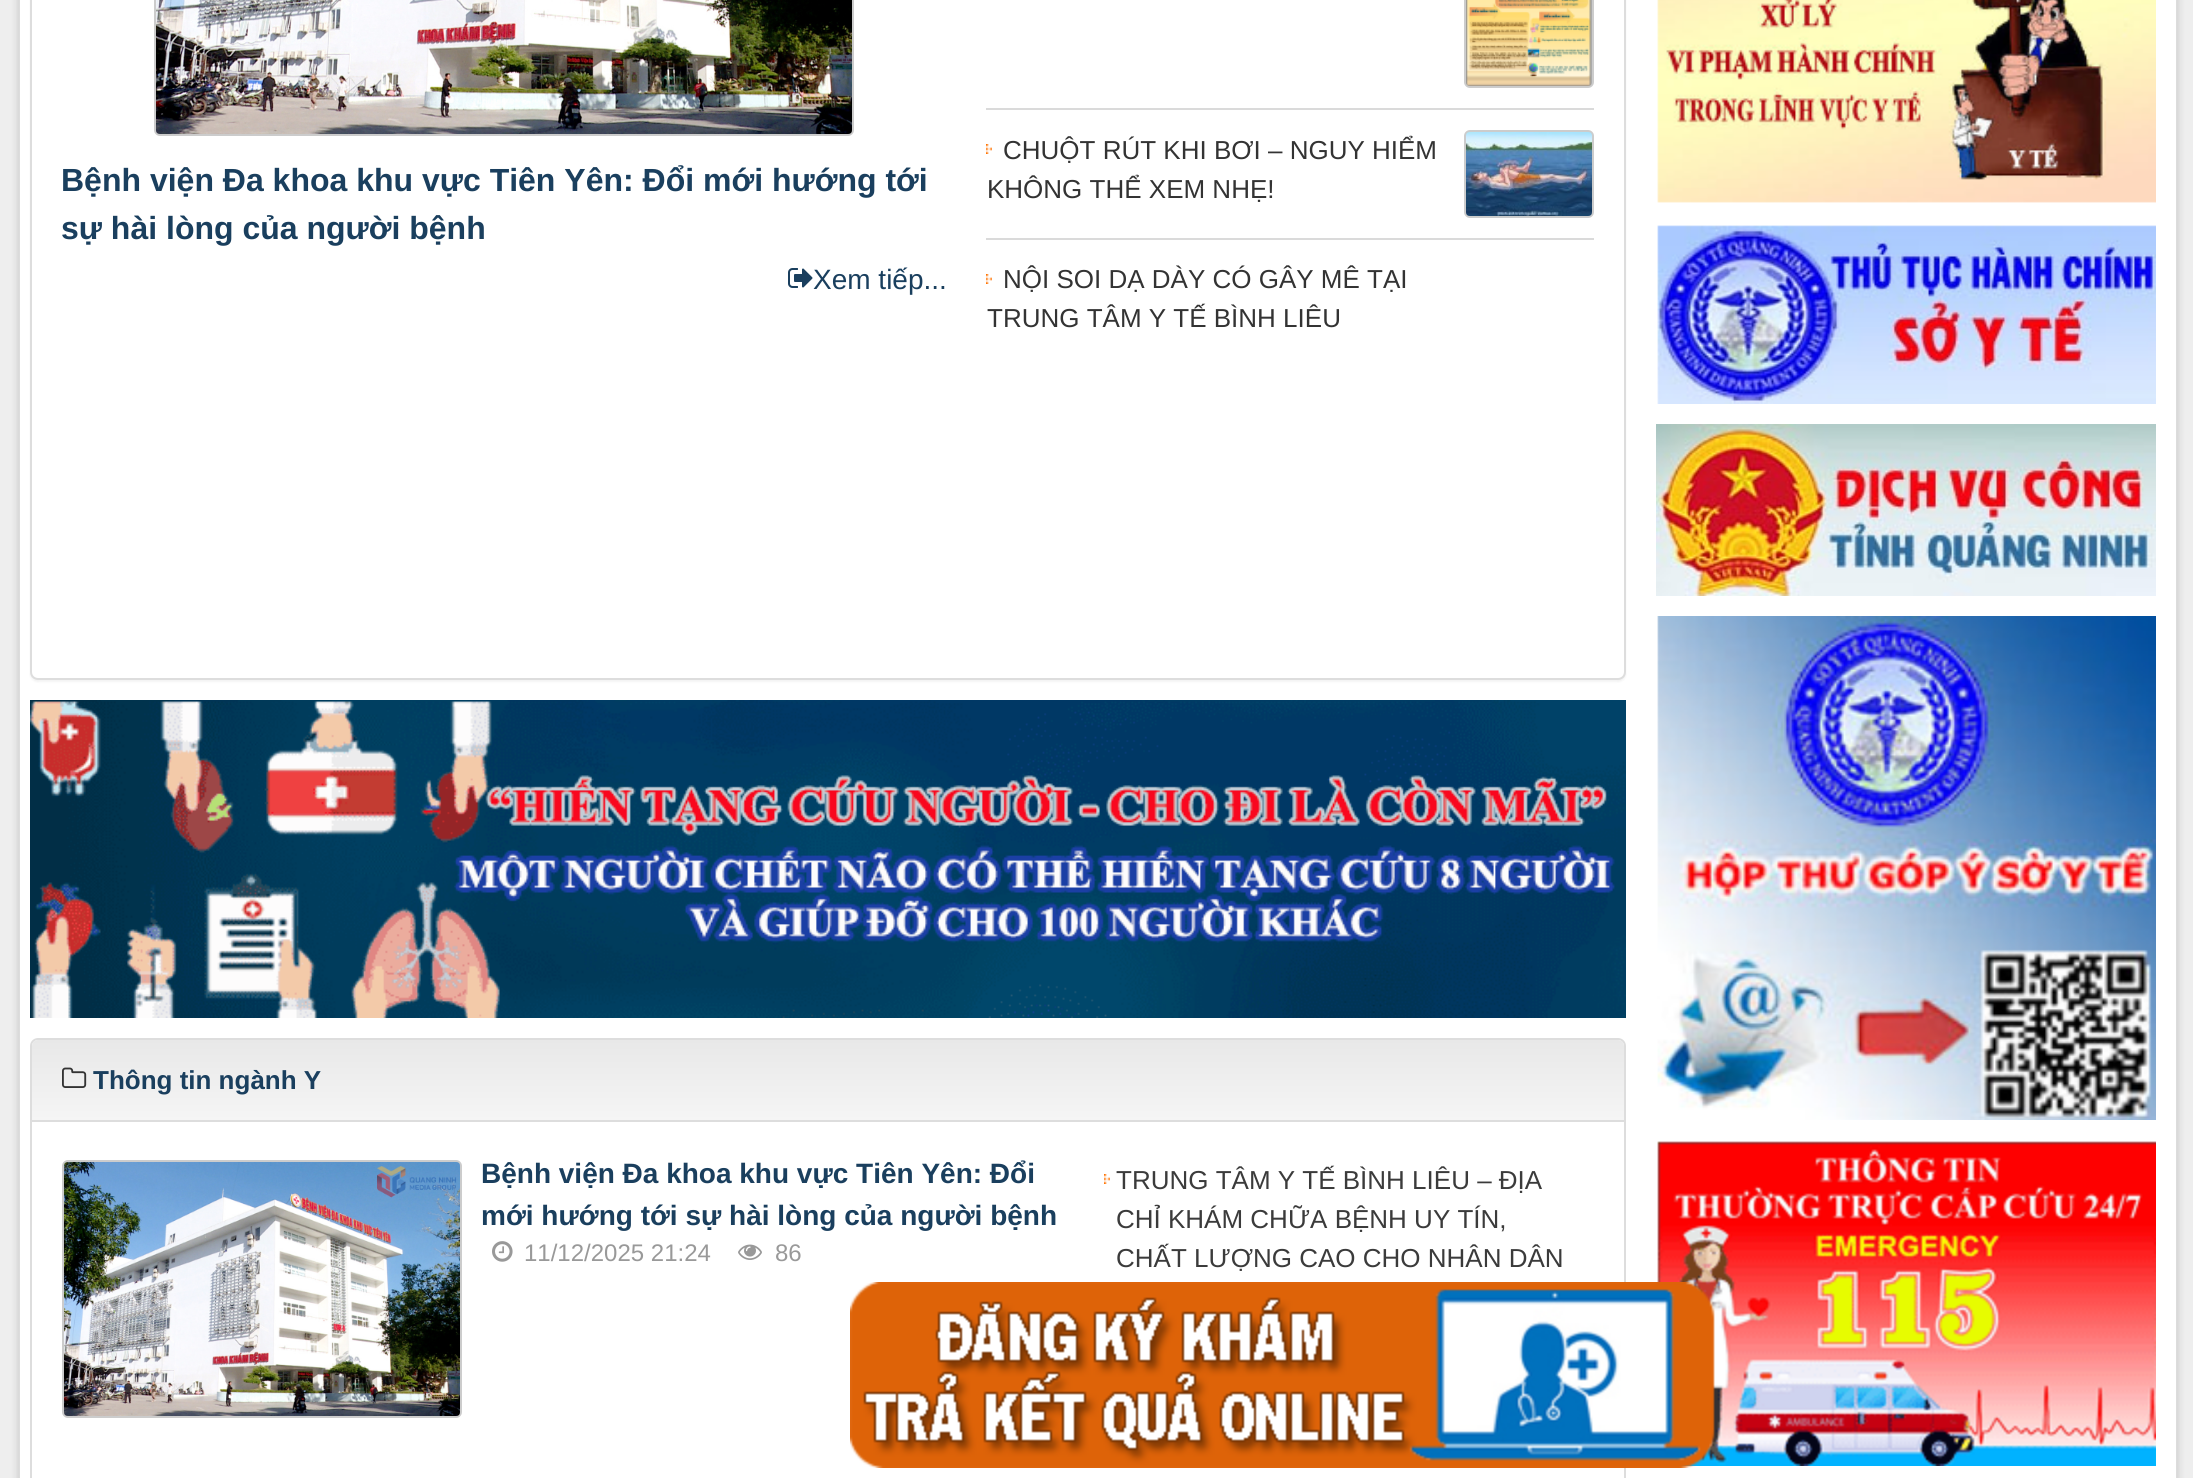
#include <cairo/cairo.h>
#include <math.h>
#include <stddef.h>


static void rounded_rect(cairo_t *cr, double x, double y, double w, double h, double r) {
  cairo_new_sub_path(cr);
  cairo_arc(cr, x + w - r, y + h - r, r, 0, M_PI / 2);
  cairo_arc(cr, x + r, y + h - r, r, M_PI / 2, M_PI);
  cairo_arc(cr, x + r, y + r, r, M_PI, 1.5 * M_PI);
  cairo_arc(cr, x + w - r, y + r, r, 1.5 * M_PI, 2 * M_PI);
  cairo_close_path(cr);
}

static void draw_shadow(cairo_t *cr, double x, double y, double w, double h, double r, double blur, double alpha) {
  cairo_push_group_with_content(cr, CAIRO_CONTENT_ALPHA);
  cairo_set_operator(cr, CAIRO_OPERATOR_SOURCE);
  for (int i = 15; i >= -15 && fmin(w, h) + blur * i / 3 > 0; i -= 2) {
    double e = blur * i / 6;
    cairo_set_source_rgba(cr, 0, 0, 0, alpha * erfc((i - 1) / 8.5) / 2);
    rounded_rect(cr, x - e, y - e, w + 2 * e, h + 2 * e, fmax(0, fmin(r + e + blur * .6, fmin(w, h) / 2 + e)));
    cairo_fill(cr);
  }
  cairo_pattern_t *soft = cairo_pop_group(cr);
  cairo_mask(cr, soft);
  cairo_pattern_destroy(soft);
}

static void draw_image(cairo_t *cr, const char *path, double x, double y, double w, double h) {
  cairo_surface_t *image = cairo_image_surface_create_from_png(path);
  cairo_save(cr);
  cairo_set_source_surface(cr, image, x, y);
  cairo_rectangle(cr, x, y, w, h);
  cairo_fill(cr);
  cairo_restore(cr);
  cairo_surface_destroy(image);
}

static void draw(cairo_t *cr) {
  cairo_pattern_t *gradient;
  cairo_set_source_rgb(cr, 238 / 255.0, 238 / 255.0, 238 / 255.0);
  cairo_paint(cr);
  cairo_set_source_rgb(cr, 0, 0, 0);
  draw_shadow(cr, 18, -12, 2160, 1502, 0, 4, 0.15);
  cairo_set_source_rgb(cr, 1, 1, 1);
  cairo_rectangle(cr, 20, 0, 2156, 1478);
  cairo_fill(cr);
  cairo_set_source_rgb(cr, 220 / 255.0, 220 / 255.0, 220 / 255.0);
  cairo_rectangle(cr, 2176, 0, 1, 1478);
  cairo_fill(cr);
  cairo_rectangle(cr, 19, 0, 1, 1478);
  cairo_fill(cr);
  cairo_set_source_rgb(cr, 0, 0, 0);
  draw_shadow(cr, 30, -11, 1596, 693, 8, 1, 0.05);
  cairo_set_source_rgb(cr, 1, 1, 1);
  rounded_rect(cr, 31, -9, 1594, 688, 7);
  cairo_fill_preserve(cr);
  cairo_set_source_rgb(cr, 221 / 255.0, 221 / 255.0, 221 / 255.0);
  cairo_stroke(cr);
  cairo_set_source_rgb(cr, 204 / 255.0, 204 / 255.0, 204 / 255.0);
  rounded_rect(cr, 154, -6, 700, 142, 6);
  cairo_fill(cr);
  draw_image(cr, "images/1.png", 156, 0, 696, 134);
  draw_image(cr, "images/2.png", 788, 268, 25, 20);
  cairo_set_source_rgb(cr, 218 / 255.0, 218 / 255.0, 218 / 255.0);
  cairo_rectangle(cr, 986, 108, 608, 2);
  cairo_fill(cr);
  cairo_set_source_rgb(cr, 204 / 255.0, 204 / 255.0, 204 / 255.0);
  rounded_rect(cr, 1464, -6, 130, 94, 6);
  cairo_fill(cr);
  draw_image(cr, "images/3.png", 1466, 0, 126, 86);
  draw_image(cr, "images/4.png", 986, 144, 6, 10);
  cairo_set_source_rgb(cr, 218 / 255.0, 218 / 255.0, 218 / 255.0);
  cairo_rectangle(cr, 986, 238, 608, 2);
  cairo_fill(cr);
  cairo_set_source_rgb(cr, 204 / 255.0, 204 / 255.0, 204 / 255.0);
  rounded_rect(cr, 1464, 130, 130, 88, 6);
  cairo_fill(cr);
  draw_image(cr, "images/5.png", 1466, 132, 126, 84);
  draw_image(cr, "images/4.png", 986, 274, 6, 10);
  draw_image(cr, "images/6.png", 30, 700, 1596, 318);
  rounded_rect(cr, 31, 1039, 1594, 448, 7);
  cairo_set_source_rgb(cr, 221 / 255.0, 221 / 255.0, 221 / 255.0);
  cairo_stroke(cr);
  gradient = cairo_pattern_create_linear(828, 1040, 828, 1120);
  cairo_pattern_add_color_stop_rgba(gradient, 0, 232 / 255.0, 232 / 255.0, 232 / 255.0, 1);
  cairo_pattern_add_color_stop_rgba(gradient, 1, 245 / 255.0, 245 / 255.0, 245 / 255.0, 1);
  cairo_set_source(cr, gradient);
  cairo_pattern_destroy(gradient);
  cairo_new_path(cr);
  cairo_move_to(cr, 38, 1040);
  cairo_line_to(cr, 1618, 1040);
  cairo_curve_to(cr, 1621.5, 1040, 1624, 1042.5, 1624, 1046);
  cairo_line_to(cr, 1624, 1120);
  cairo_line_to(cr, 32, 1120);
  cairo_line_to(cr, 32, 1046);
  cairo_curve_to(cr, 32, 1042.5, 34.5, 1040, 38, 1040);
  cairo_close_path(cr);
  cairo_fill(cr);
  cairo_set_source_rgb(cr, 221 / 255.0, 221 / 255.0, 221 / 255.0);
  cairo_rectangle(cr, 32, 1120, 1592, 2);
  cairo_fill(cr);
  draw_image(cr, "images/7.png", 62, 1067, 25, 21);
  cairo_set_source_rgb(cr, 204 / 255.0, 204 / 255.0, 204 / 255.0);
  rounded_rect(cr, 62, 1160, 400, 258, 6);
  cairo_fill(cr);
  draw_image(cr, "images/8.png", 64, 1162, 396, 254);
  draw_image(cr, "images/9.png", 492, 1241, 21, 21);
  draw_image(cr, "images/10.png", 738, 1244, 24, 16);
  draw_image(cr, "images/4.png", 1104, 1174, 6, 10);
  draw_image(cr, "images/11.png", 1657, 0, 499, 203);
  draw_image(cr, "images/12.png", 1657, 225, 499, 179);
  draw_image(cr, "images/13.png", 1656, 424, 500, 172);
  draw_image(cr, "images/14.png", 1657, 616, 499, 504);
  draw_image(cr, "images/15.png", 1657, 1141, 499, 325);
  draw_image(cr, "images/16.png", 850, 1282, 865, 186);
  cairo_select_font_face(cr, "Liberation Sans", CAIRO_FONT_SLANT_NORMAL, CAIRO_FONT_WEIGHT_BOLD);
  cairo_set_font_size(cr, 32);
  cairo_set_source_rgb(cr, 26 / 255.0, 63 / 255.0, 94 / 255.0);
  cairo_move_to(cr, 61, 191);
  cairo_show_text(cr, "Bệnh viện Đa khoa khu vực Tiên Yên: Đổi mới hướng tới");
  cairo_move_to(cr, 61, 239);
  cairo_show_text(cr, "sự hài lòng của người bệnh");
  cairo_select_font_face(cr, "Liberation Sans", CAIRO_FONT_SLANT_NORMAL, CAIRO_FONT_WEIGHT_NORMAL);
  cairo_set_font_size(cr, 28);
  cairo_move_to(cr, 813, 289);
  cairo_show_text(cr, "Xem tiếp...");
  cairo_set_font_size(cr, 26);
  cairo_set_source_rgb(cr, 51 / 255.0, 51 / 255.0, 51 / 255.0);
  cairo_move_to(cr, 1003, 159);
  cairo_show_text(cr, "CHUỘT RÚT KHI BƠI – NGUY HIỂM");
  cairo_move_to(cr, 987, 198);
  cairo_show_text(cr, "KHÔNG THỂ XEM NHẸ!");
  cairo_move_to(cr, 1003, 288);
  cairo_show_text(cr, "NỘI SOI DẠ DÀY CÓ GÂY MÊ TẠI");
  cairo_move_to(cr, 987, 327);
  cairo_show_text(cr, "TRUNG TÂM Y TẾ BÌNH LIÊU");
  cairo_select_font_face(cr, "Liberation Sans", CAIRO_FONT_SLANT_NORMAL, CAIRO_FONT_WEIGHT_BOLD);
  cairo_set_source_rgb(cr, 26 / 255.0, 63 / 255.0, 94 / 255.0);
  cairo_move_to(cr, 93, 1089);
  cairo_show_text(cr, "Thông tin ngành Y");
  cairo_set_font_size(cr, 28);
  cairo_move_to(cr, 481, 1183);
  cairo_show_text(cr, "Bệnh viện Đa khoa khu vực Tiên Yên: Đổi");
  cairo_move_to(cr, 481, 1225);
  cairo_show_text(cr, "mới hướng tới sự hài lòng của người bệnh");
  cairo_select_font_face(cr, "Liberation Sans", CAIRO_FONT_SLANT_NORMAL, CAIRO_FONT_WEIGHT_NORMAL);
  cairo_set_font_size(cr, 24);
  cairo_set_source_rgb(cr, 153 / 255.0, 153 / 255.0, 153 / 255.0);
  cairo_move_to(cr, 524, 1261);
  cairo_show_text(cr, "11/12/2025 21:24");
  cairo_move_to(cr, 775, 1261);
  cairo_show_text(cr, "86");
  cairo_set_font_size(cr, 26);
  cairo_set_source_rgb(cr, 59 / 255.0, 59 / 255.0, 59 / 255.0);
  cairo_move_to(cr, 1116, 1189);
  cairo_show_text(cr, "TRUNG TÂM Y TẾ BÌNH LIÊU – ĐỊA");
  cairo_move_to(cr, 1116, 1228);
  cairo_show_text(cr, "CHỈ KHÁM CHỮA BỆNH UY TÍN,");
  cairo_move_to(cr, 1116, 1267);
  cairo_show_text(cr, "CHẤT LƯỢNG CAO CHO NHÂN DÂN");
}

int main(void) {
  cairo_surface_t *surface = cairo_image_surface_create(CAIRO_FORMAT_RGB24, 2193, 1478);
  cairo_t *cr = cairo_create(surface);
  cairo_font_options_t *options = cairo_font_options_create();
  cairo_font_options_set_hint_metrics(options, CAIRO_HINT_METRICS_OFF);
  cairo_font_options_set_hint_style(options, CAIRO_HINT_STYLE_NONE);
  cairo_set_font_options(cr, options);
  cairo_set_miter_limit(cr, 4);
  draw(cr);
  cairo_surface_write_to_png(surface, "out.png");
  cairo_font_options_destroy(options);
  cairo_destroy(cr);
  cairo_surface_destroy(surface);
  return 0;
}
